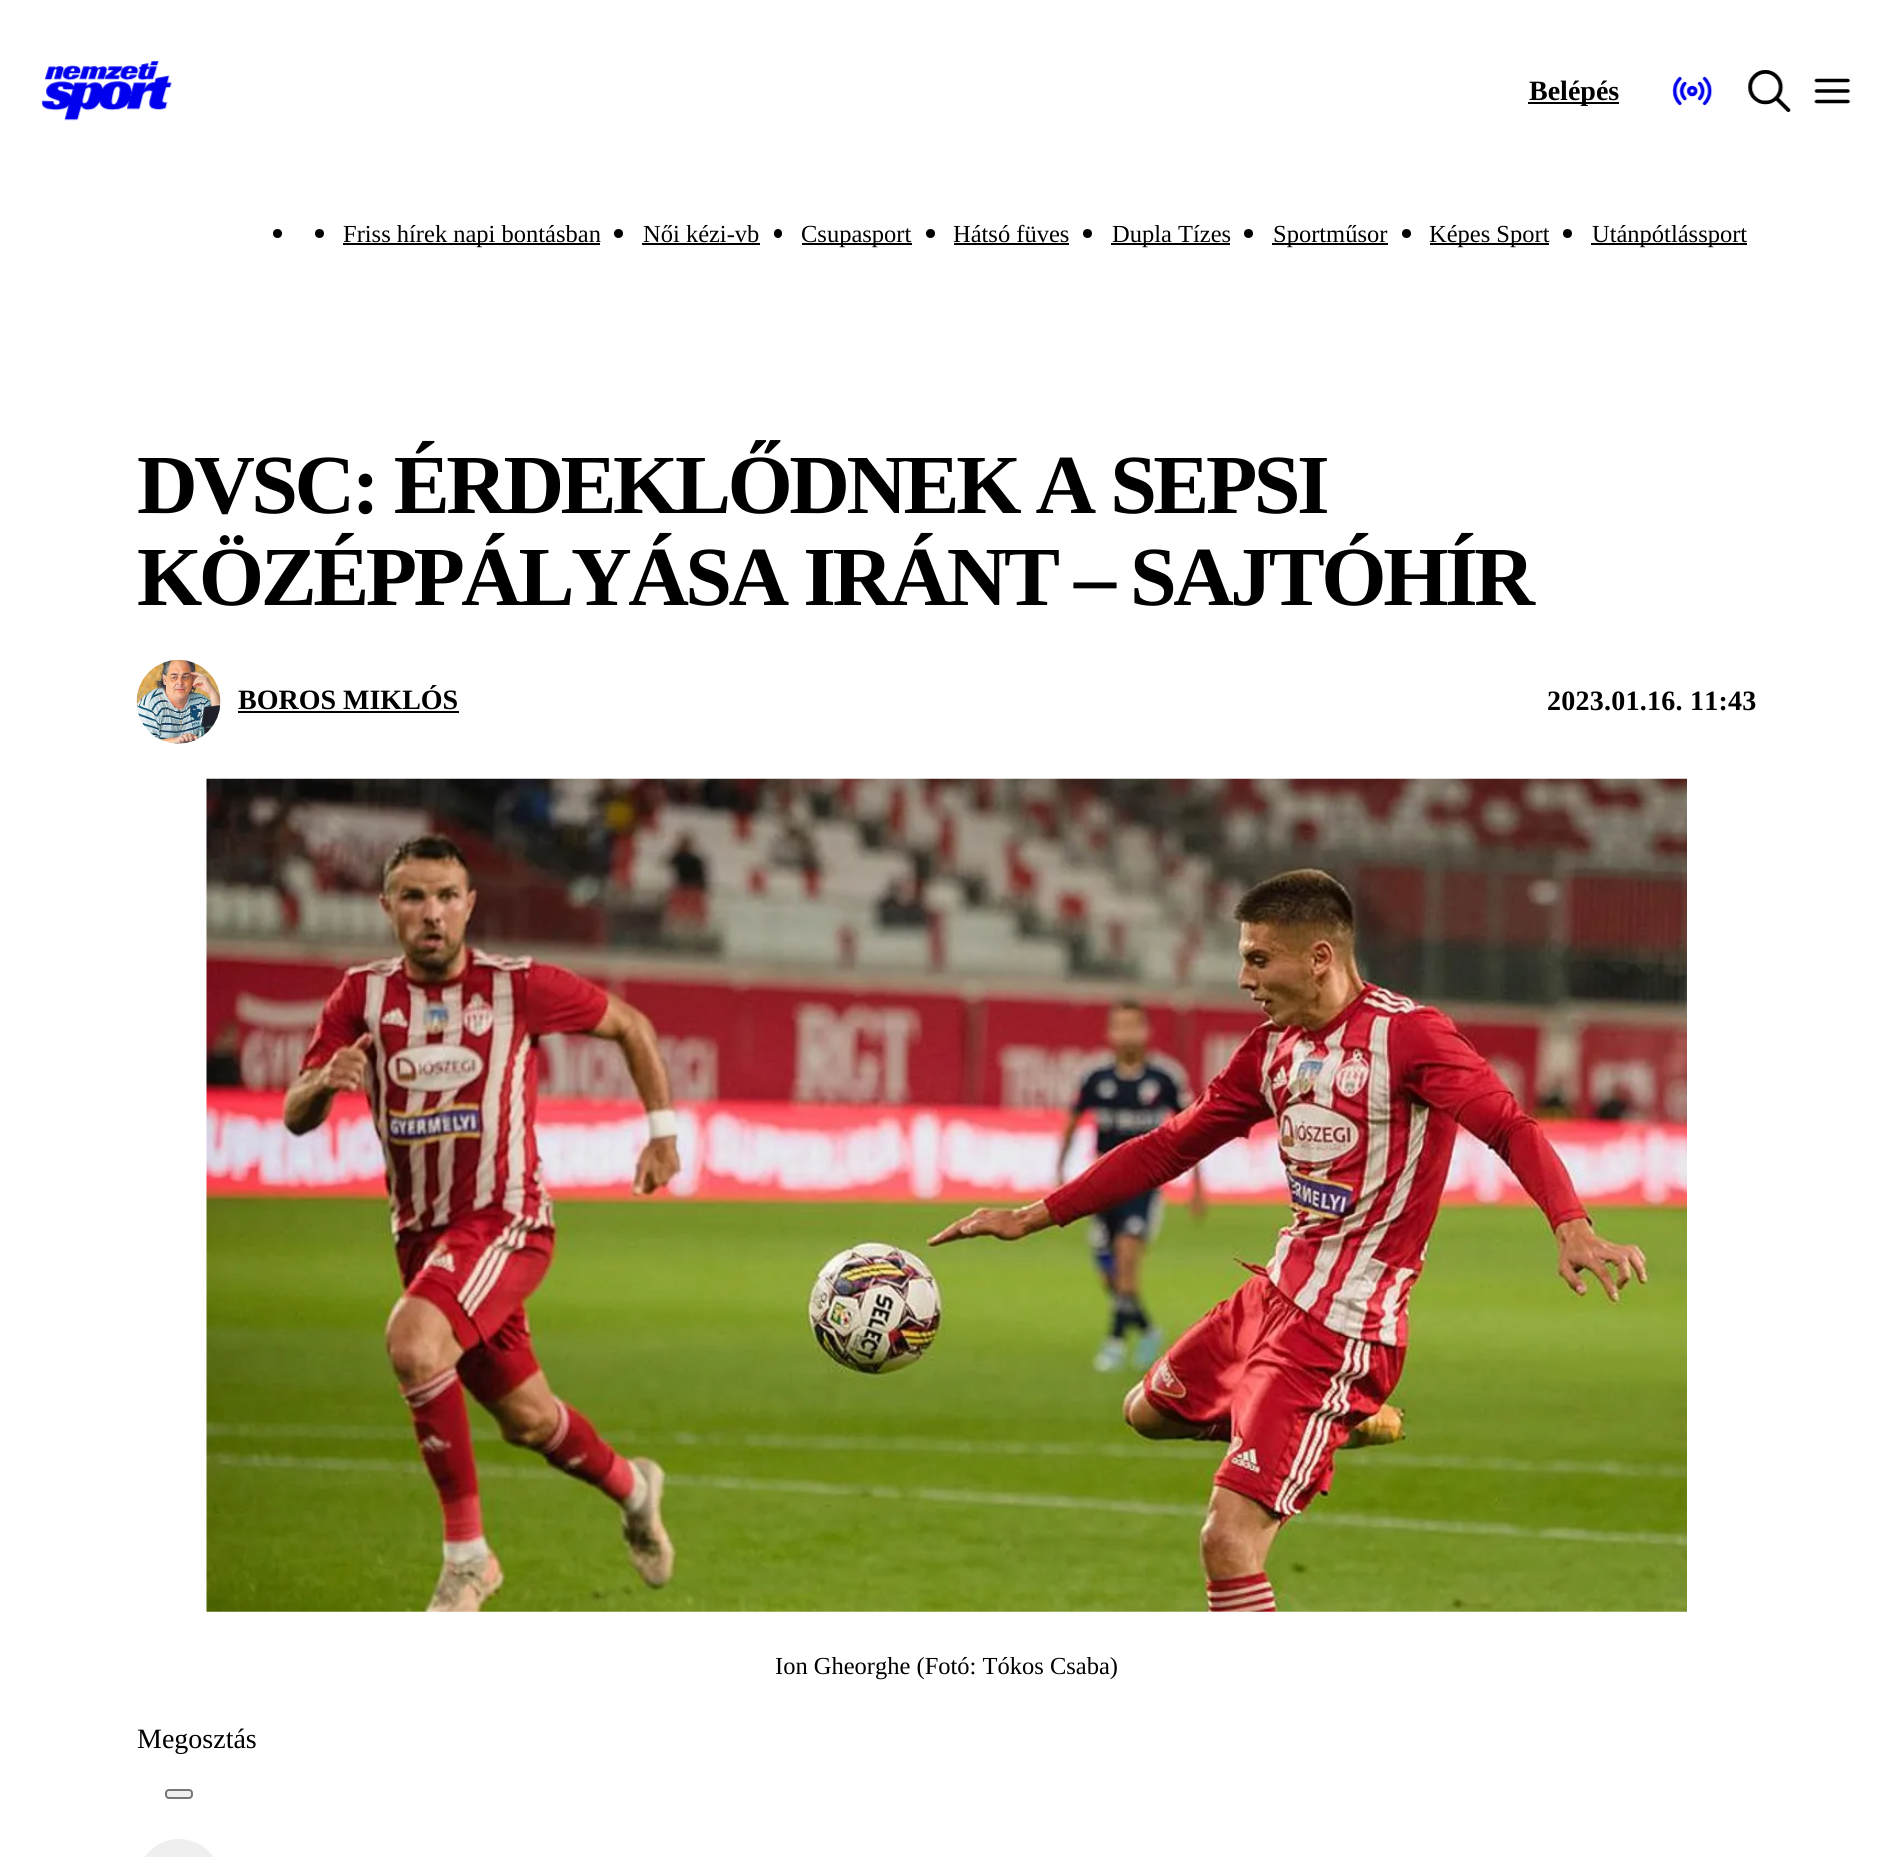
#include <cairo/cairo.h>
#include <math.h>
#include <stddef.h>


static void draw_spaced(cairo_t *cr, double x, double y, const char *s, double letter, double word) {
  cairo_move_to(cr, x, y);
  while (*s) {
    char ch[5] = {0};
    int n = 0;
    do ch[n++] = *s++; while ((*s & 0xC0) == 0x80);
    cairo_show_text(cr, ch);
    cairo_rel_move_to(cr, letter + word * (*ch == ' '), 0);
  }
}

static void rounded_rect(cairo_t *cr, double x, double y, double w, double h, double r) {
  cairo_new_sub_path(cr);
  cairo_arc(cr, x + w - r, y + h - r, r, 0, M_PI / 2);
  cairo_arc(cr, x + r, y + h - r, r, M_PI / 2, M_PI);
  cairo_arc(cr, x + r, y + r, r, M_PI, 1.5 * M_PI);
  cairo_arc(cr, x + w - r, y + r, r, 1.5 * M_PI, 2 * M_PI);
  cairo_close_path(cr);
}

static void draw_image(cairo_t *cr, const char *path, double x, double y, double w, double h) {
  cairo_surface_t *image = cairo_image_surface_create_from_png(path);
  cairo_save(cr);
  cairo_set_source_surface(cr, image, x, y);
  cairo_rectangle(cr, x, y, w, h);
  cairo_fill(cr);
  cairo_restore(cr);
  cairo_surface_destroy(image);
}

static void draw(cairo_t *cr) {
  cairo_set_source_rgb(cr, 1, 1, 1);
  cairo_paint(cr);
  draw_image(cr, "images/1.png", 41, 61, 131, 60);
  cairo_set_source_rgb(cr, 0, 0, 0);
  cairo_rectangle(cr, 1528, 102, 91, 2);
  cairo_fill(cr);
  draw_image(cr, "images/2.png", 1672, 76, 41, 30);
  draw_image(cr, "images/3.png", 1748, 70, 43, 42);
  draw_image(cr, "images/4.png", 1814, 78, 37, 26);
  cairo_arc(cr, 277.5, 233.5, 4.5, 0, 2 * M_PI);
  cairo_fill(cr);
  cairo_arc(cr, 319.5, 233.5, 4.5, 0, 2 * M_PI);
  cairo_fill(cr);
  cairo_rectangle(cr, 343, 243, 257, 2);
  cairo_fill(cr);
  cairo_arc(cr, 618.5, 233.5, 4.5, 0, 2 * M_PI);
  cairo_fill(cr);
  cairo_rectangle(cr, 642, 243, 118, 2);
  cairo_fill(cr);
  rounded_rect(cr, 774, 229, 8, 9, 4);
  cairo_fill(cr);
  cairo_rectangle(cr, 802, 243, 110, 2);
  cairo_fill(cr);
  cairo_arc(cr, 930.5, 233.5, 4.5, 0, 2 * M_PI);
  cairo_fill(cr);
  cairo_rectangle(cr, 954, 243, 115, 2);
  cairo_fill(cr);
  cairo_arc(cr, 1087.5, 233.5, 4.5, 0, 2 * M_PI);
  cairo_fill(cr);
  cairo_rectangle(cr, 1111, 243, 119, 2);
  cairo_fill(cr);
  cairo_arc(cr, 1248.5, 233.5, 4.5, 0, 2 * M_PI);
  cairo_fill(cr);
  cairo_rectangle(cr, 1272, 243, 116, 2);
  cairo_fill(cr);
  cairo_arc(cr, 1406.5, 233.5, 4.5, 0, 2 * M_PI);
  cairo_fill(cr);
  cairo_rectangle(cr, 1430, 243, 119, 2);
  cairo_fill(cr);
  cairo_arc(cr, 1567.5, 233.5, 4.5, 0, 2 * M_PI);
  cairo_fill(cr);
  cairo_rectangle(cr, 1591, 243, 156, 2);
  cairo_fill(cr);
  draw_image(cr, "images/5.png", 136, 659, 85, 85);
  cairo_rectangle(cr, 238, 711, 221, 2);
  cairo_fill(cr);
  draw_image(cr, "images/6.png", 206, 778, 1481, 834);
  cairo_set_source_rgb(cr, 239 / 255.0, 239 / 255.0, 239 / 255.0);
  rounded_rect(cr, 166, 1790, 26, 8, 3);
  cairo_fill_preserve(cr);
  cairo_set_source_rgb(cr, 118 / 255.0, 118 / 255.0, 118 / 255.0);
  cairo_stroke(cr);
  cairo_set_source_rgb(cr, 239 / 255.0, 239 / 255.0, 239 / 255.0);
  rounded_rect(cr, 137, 1839, 84, 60, 42);
  cairo_fill(cr);
  cairo_select_font_face(cr, "Liberation Serif", CAIRO_FONT_SLANT_NORMAL, CAIRO_FONT_WEIGHT_BOLD);
  cairo_set_font_size(cr, 28);
  cairo_set_source_rgb(cr, 0, 0, 0);
  cairo_move_to(cr, 1529, 100);
  cairo_show_text(cr, "Belépés");
  cairo_select_font_face(cr, "Liberation Serif", CAIRO_FONT_SLANT_NORMAL, CAIRO_FONT_WEIGHT_NORMAL);
  cairo_set_font_size(cr, 24.5);
  cairo_move_to(cr, 343, 242);
  cairo_show_text(cr, "Friss hírek napi bontásban");
  cairo_move_to(cr, 643, 242);
  cairo_show_text(cr, "Női kézi-vb");
  cairo_move_to(cr, 801, 242);
  cairo_show_text(cr, "Csupasport");
  cairo_move_to(cr, 953, 242);
  cairo_show_text(cr, "Hátsó füves");
  cairo_move_to(cr, 1112, 242);
  cairo_show_text(cr, "Dupla Tízes");
  cairo_move_to(cr, 1273, 242);
  cairo_show_text(cr, "Sportműsor");
  cairo_move_to(cr, 1429, 242);
  cairo_show_text(cr, "Képes Sport");
  cairo_move_to(cr, 1592, 242);
  cairo_show_text(cr, "Utánpótlássport");
  cairo_select_font_face(cr, "Liberation Serif", CAIRO_FONT_SLANT_NORMAL, CAIRO_FONT_WEIGHT_BOLD);
  cairo_set_font_size(cr, 84);
  draw_spaced(cr, 137, 513, "DVSC: ÉRDEKLŐDNEK A SEPSI", -3.5, 0);
  draw_spaced(cr, 137, 605, "KÖZÉPPÁLYÁSA IRÁNT – SAJTÓHÍR", -3.5, 0);
  cairo_set_font_size(cr, 28);
  cairo_move_to(cr, 238, 709);
  cairo_show_text(cr, "BOROS MIKLÓS");
  draw_spaced(cr, 1547, 710, "2023.01.16. 11:43", 0.25, 0);
  cairo_select_font_face(cr, "Liberation Serif", CAIRO_FONT_SLANT_NORMAL, CAIRO_FONT_WEIGHT_NORMAL);
  cairo_set_font_size(cr, 24.5);
  cairo_move_to(cr, 775, 1674);
  cairo_show_text(cr, "Ion Gheorghe (Fotó: Tókos Csaba)");
  cairo_set_font_size(cr, 28);
  cairo_move_to(cr, 137, 1748);
  cairo_show_text(cr, "Megosztás");
}

int main(void) {
  cairo_surface_t *surface = cairo_image_surface_create(CAIRO_FORMAT_RGB24, 1893, 1857);
  cairo_t *cr = cairo_create(surface);
  cairo_font_options_t *options = cairo_font_options_create();
  cairo_font_options_set_hint_metrics(options, CAIRO_HINT_METRICS_OFF);
  cairo_font_options_set_hint_style(options, CAIRO_HINT_STYLE_NONE);
  cairo_set_font_options(cr, options);
  cairo_set_miter_limit(cr, 4);
  draw(cr);
  cairo_surface_write_to_png(surface, "out.png");
  cairo_font_options_destroy(options);
  cairo_destroy(cr);
  cairo_surface_destroy(surface);
  return 0;
}
